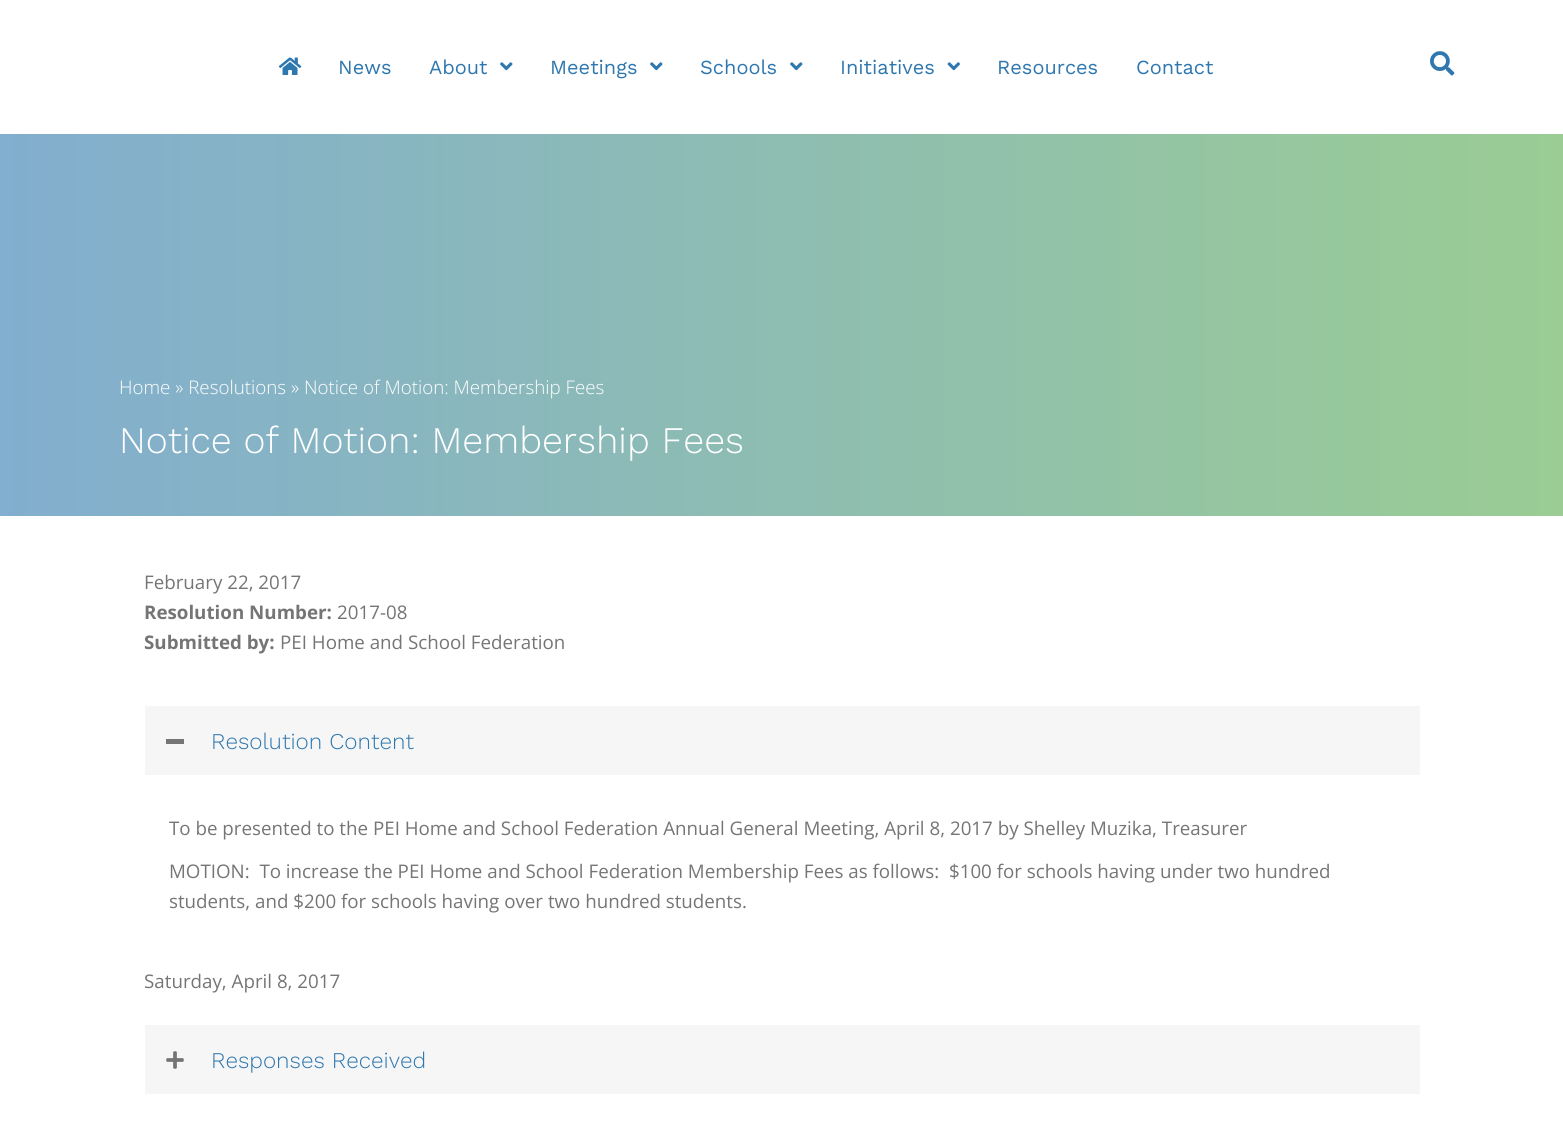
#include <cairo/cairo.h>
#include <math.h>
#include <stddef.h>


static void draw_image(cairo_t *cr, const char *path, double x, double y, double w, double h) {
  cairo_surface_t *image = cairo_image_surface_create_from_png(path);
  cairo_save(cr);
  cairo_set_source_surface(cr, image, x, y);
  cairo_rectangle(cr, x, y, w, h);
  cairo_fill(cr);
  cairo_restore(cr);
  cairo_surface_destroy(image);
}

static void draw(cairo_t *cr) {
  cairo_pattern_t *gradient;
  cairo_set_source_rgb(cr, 1, 1, 1);
  cairo_paint(cr);
  draw_image(cr, "images/1.png", 278, 57, 24, 18);
  draw_image(cr, "images/2.png", 500, 62, 13, 9);
  draw_image(cr, "images/2.png", 650, 62, 13, 9);
  draw_image(cr, "images/2.png", 790, 62, 13, 9);
  draw_image(cr, "images/3.png", 947, 62, 13, 9);
  draw_image(cr, "images/4.png", 1430, 51, 25, 25);
  gradient = cairo_pattern_create_linear(0, 325, 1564, 325);
  cairo_pattern_add_color_stop_rgba(gradient, 0, 130 / 255.0, 174 / 255.0, 207 / 255.0, 1);
  cairo_pattern_add_color_stop_rgba(gradient, 1, 154 / 255.0, 204 / 255.0, 148 / 255.0, 1);
  cairo_set_source(cr, gradient);
  cairo_pattern_destroy(gradient);
  cairo_rectangle(cr, 0, 134, 1563, 382);
  cairo_fill(cr);
  cairo_set_source_rgb(cr, 246 / 255.0, 246 / 255.0, 246 / 255.0);
  cairo_rectangle(cr, 145, 706, 1275, 69);
  cairo_fill(cr);
  cairo_set_source_rgb(cr, 117 / 255.0, 117 / 255.0, 117 / 255.0);
  cairo_rectangle(cr, 166, 739, 18, 5);
  cairo_fill(cr);
  cairo_set_source_rgb(cr, 246 / 255.0, 246 / 255.0, 246 / 255.0);
  cairo_rectangle(cr, 145, 1025, 1275, 69);
  cairo_fill(cr);
  draw_image(cr, "images/5.png", 166, 1051, 18, 18);
  cairo_select_font_face(cr, "Work Sans", CAIRO_FONT_SLANT_NORMAL, CAIRO_FONT_WEIGHT_NORMAL);
  cairo_set_font_size(cr, 20);
  cairo_set_source_rgb(cr, 46 / 255.0, 119 / 255.0, 175 / 255.0);
  cairo_move_to(cr, 338, 74);
  cairo_show_text(cr, "News");
  cairo_move_to(cr, 429, 74);
  cairo_show_text(cr, "About");
  cairo_move_to(cr, 550, 74);
  cairo_show_text(cr, "Meetings");
  cairo_move_to(cr, 700, 74);
  cairo_show_text(cr, "Schools");
  cairo_move_to(cr, 840, 74);
  cairo_show_text(cr, "Initiatives");
  cairo_move_to(cr, 997, 74);
  cairo_show_text(cr, "Resources");
  cairo_move_to(cr, 1136, 74);
  cairo_show_text(cr, "Contact");
  cairo_select_font_face(cr, "Open Sans Light", CAIRO_FONT_SLANT_NORMAL, CAIRO_FONT_WEIGHT_NORMAL);
  cairo_set_font_size(cr, 18.75);
  cairo_set_source_rgb(cr, 1, 1, 1);
  cairo_move_to(cr, 119, 394);
  cairo_show_text(cr, "Home » Resolutions » Notice of Motion: Membership Fees");
  cairo_select_font_face(cr, "Work Sans Light", CAIRO_FONT_SLANT_NORMAL, CAIRO_FONT_WEIGHT_NORMAL);
  cairo_set_font_size(cr, 37.5);
  cairo_move_to(cr, 119, 453);
  cairo_show_text(cr, "Notice of Motion: Membership Fees");
  cairo_select_font_face(cr, "Open Sans", CAIRO_FONT_SLANT_NORMAL, CAIRO_FONT_WEIGHT_NORMAL);
  cairo_set_font_size(cr, 18.75);
  cairo_set_source_rgb(cr, 117 / 255.0, 117 / 255.0, 117 / 255.0);
  cairo_move_to(cr, 144, 589);
  cairo_show_text(cr, "February 22, 2017");
  cairo_select_font_face(cr, "Open Sans", CAIRO_FONT_SLANT_NORMAL, CAIRO_FONT_WEIGHT_BOLD);
  cairo_move_to(cr, 144, 619);
  cairo_show_text(cr, "Resolution Number:");
  cairo_select_font_face(cr, "Open Sans", CAIRO_FONT_SLANT_NORMAL, CAIRO_FONT_WEIGHT_NORMAL);
  cairo_move_to(cr, 337, 619);
  cairo_show_text(cr, "2017-08");
  cairo_select_font_face(cr, "Open Sans", CAIRO_FONT_SLANT_NORMAL, CAIRO_FONT_WEIGHT_BOLD);
  cairo_move_to(cr, 144, 649);
  cairo_show_text(cr, "Submitted by:");
  cairo_select_font_face(cr, "Open Sans", CAIRO_FONT_SLANT_NORMAL, CAIRO_FONT_WEIGHT_NORMAL);
  cairo_move_to(cr, 280, 649);
  cairo_show_text(cr, "PEI Home and School Federation");
  cairo_select_font_face(cr, "Work Sans Light", CAIRO_FONT_SLANT_NORMAL, CAIRO_FONT_WEIGHT_NORMAL);
  cairo_set_font_size(cr, 22.5);
  cairo_set_source_rgb(cr, 46 / 255.0, 119 / 255.0, 175 / 255.0);
  cairo_move_to(cr, 211, 749);
  cairo_show_text(cr, "Resolution Content");
  cairo_select_font_face(cr, "Open Sans", CAIRO_FONT_SLANT_NORMAL, CAIRO_FONT_WEIGHT_NORMAL);
  cairo_set_font_size(cr, 18.75);
  cairo_set_source_rgb(cr, 117 / 255.0, 117 / 255.0, 117 / 255.0);
  cairo_move_to(cr, 169, 835);
  cairo_show_text(cr, "To be presented to the PEI Home and School Federation Annual General Meeting, April 8, 2017 by Shelley Muzika, Treasurer");
  cairo_move_to(cr, 169, 878);
  cairo_show_text(cr, "MOTION:  To increase the PEI Home and School Federation Membership Fees as follows:  $100 for schools having under two hundred");
  cairo_move_to(cr, 169, 908);
  cairo_show_text(cr, "students, and $200 for schools having over two hundred students.");
  cairo_move_to(cr, 144, 988);
  cairo_show_text(cr, "Saturday, April 8, 2017");
  cairo_select_font_face(cr, "Work Sans Light", CAIRO_FONT_SLANT_NORMAL, CAIRO_FONT_WEIGHT_NORMAL);
  cairo_set_font_size(cr, 22.5);
  cairo_set_source_rgb(cr, 46 / 255.0, 119 / 255.0, 175 / 255.0);
  cairo_move_to(cr, 211, 1068);
  cairo_show_text(cr, "Responses Received");
}

int main(void) {
  cairo_surface_t *surface = cairo_image_surface_create(CAIRO_FORMAT_RGB24, 1563, 1123);
  cairo_t *cr = cairo_create(surface);
  cairo_font_options_t *options = cairo_font_options_create();
  cairo_font_options_set_hint_metrics(options, CAIRO_HINT_METRICS_OFF);
  cairo_font_options_set_hint_style(options, CAIRO_HINT_STYLE_NONE);
  cairo_set_font_options(cr, options);
  cairo_set_miter_limit(cr, 4);
  draw(cr);
  cairo_surface_write_to_png(surface, "out.png");
  cairo_font_options_destroy(options);
  cairo_destroy(cr);
  cairo_surface_destroy(surface);
  return 0;
}
